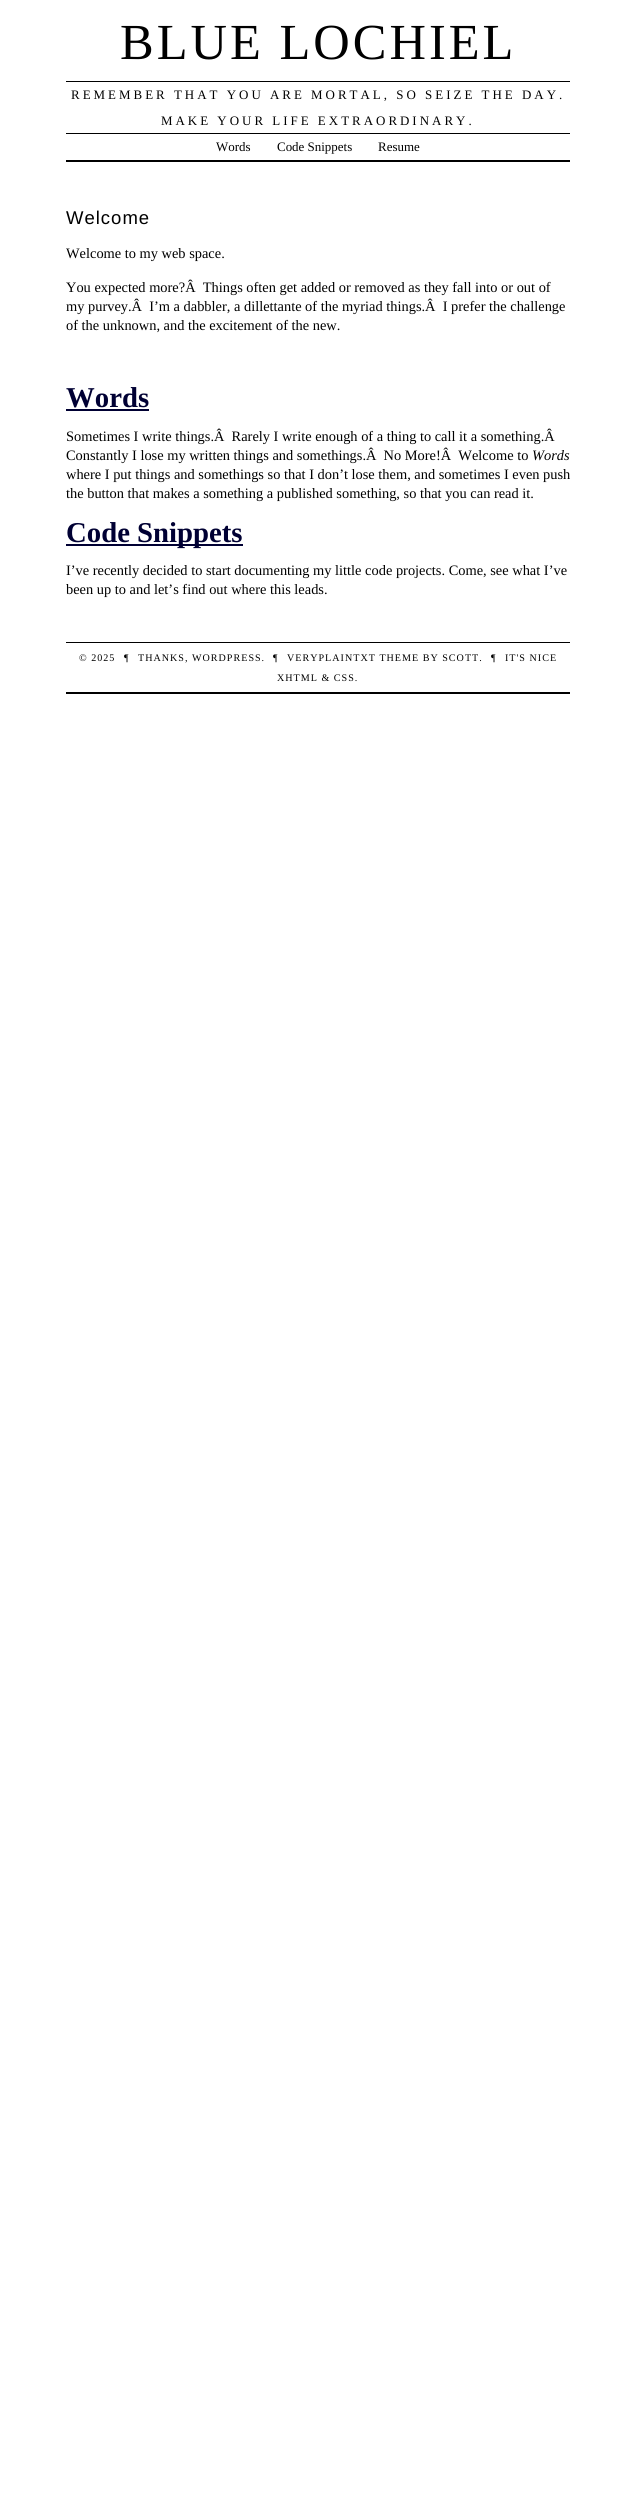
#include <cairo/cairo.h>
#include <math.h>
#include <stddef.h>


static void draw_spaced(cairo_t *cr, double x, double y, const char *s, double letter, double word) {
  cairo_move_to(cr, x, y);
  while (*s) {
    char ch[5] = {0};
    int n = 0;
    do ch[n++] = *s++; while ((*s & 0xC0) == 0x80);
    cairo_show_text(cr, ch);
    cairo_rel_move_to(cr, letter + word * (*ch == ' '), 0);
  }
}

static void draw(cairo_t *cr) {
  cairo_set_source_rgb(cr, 1, 1, 1);
  cairo_paint(cr);
  cairo_set_source_rgb(cr, 0, 0, 0);
  cairo_rectangle(cr, 66, 81, 504, 1);
  cairo_fill(cr);
  cairo_rectangle(cr, 66, 133, 504, 1);
  cairo_fill(cr);
  cairo_rectangle(cr, 66, 160, 504, 2);
  cairo_fill(cr);
  cairo_set_source_rgb(cr, 0, 0, 51 / 255.0);
  cairo_rectangle(cr, 66, 409, 83, 2);
  cairo_fill(cr);
  cairo_rectangle(cr, 66, 544, 177, 2);
  cairo_fill(cr);
  cairo_set_source_rgb(cr, 0, 0, 0);
  cairo_rectangle(cr, 66, 642, 504, 1);
  cairo_fill(cr);
  cairo_rectangle(cr, 66, 692, 504, 2);
  cairo_fill(cr);
  cairo_select_font_face(cr, "Liberation Serif", CAIRO_FONT_SLANT_NORMAL, CAIRO_FONT_WEIGHT_NORMAL);
  cairo_set_font_size(cr, 50.5);
  draw_spaced(cr, 120, 59, "BLUE LOCHIEL", 3, 0);
  cairo_set_font_size(cr, 12.95);
  draw_spaced(cr, 71, 99, "REMEMBER THAT YOU ARE MORTAL, SO SEIZE THE DAY.", 3, 0);
  draw_spaced(cr, 161, 125, "MAKE YOUR LIFE EXTRAORDINARY.", 3, 0);
  cairo_move_to(cr, 216, 151);
  cairo_show_text(cr, "Words");
  cairo_move_to(cr, 277, 151);
  cairo_show_text(cr, "Code Snippets");
  cairo_move_to(cr, 378, 151);
  cairo_show_text(cr, "Resume");
  cairo_select_font_face(cr, "Liberation Sans", CAIRO_FONT_SLANT_NORMAL, CAIRO_FONT_WEIGHT_NORMAL);
  cairo_set_font_size(cr, 18.5);
  draw_spaced(cr, 66, 224, "Welcome", 1, 0);
  cairo_select_font_face(cr, "Liberation Serif", CAIRO_FONT_SLANT_NORMAL, CAIRO_FONT_WEIGHT_NORMAL);
  cairo_set_font_size(cr, 14.4);
  cairo_move_to(cr, 66, 258);
  cairo_show_text(cr, "Welcome to my web space.");
  cairo_move_to(cr, 66, 292);
  cairo_show_text(cr, "You expected more?Â  Things often get added or removed as they fall into or out of");
  cairo_move_to(cr, 66, 311);
  cairo_show_text(cr, "my purvey.Â  I’m a dabbler, a dillettante of the myriad things.Â  I prefer the challenge");
  cairo_move_to(cr, 66, 330);
  cairo_show_text(cr, "of the unknown, and the excitement of the new.");
  cairo_select_font_face(cr, "Liberation Serif", CAIRO_FONT_SLANT_NORMAL, CAIRO_FONT_WEIGHT_BOLD);
  cairo_set_font_size(cr, 28.75);
  cairo_set_source_rgb(cr, 0, 0, 51 / 255.0);
  cairo_move_to(cr, 66, 407);
  cairo_show_text(cr, "Words");
  cairo_select_font_face(cr, "Liberation Serif", CAIRO_FONT_SLANT_NORMAL, CAIRO_FONT_WEIGHT_NORMAL);
  cairo_set_font_size(cr, 14.4);
  cairo_set_source_rgb(cr, 0, 0, 0);
  cairo_move_to(cr, 66, 441);
  cairo_show_text(cr, "Sometimes I write things.Â  Rarely I write enough of a thing to call it a something.Â");
  cairo_move_to(cr, 66, 460);
  cairo_show_text(cr, "Constantly I lose my written things and somethings.Â  No More!Â  Welcome to");
  cairo_select_font_face(cr, "Liberation Serif", CAIRO_FONT_SLANT_ITALIC, CAIRO_FONT_WEIGHT_NORMAL);
  cairo_move_to(cr, 532, 460);
  cairo_show_text(cr, "Words");
  cairo_select_font_face(cr, "Liberation Serif", CAIRO_FONT_SLANT_NORMAL, CAIRO_FONT_WEIGHT_NORMAL);
  cairo_move_to(cr, 66, 479);
  cairo_show_text(cr, "where I put things and somethings so that I don’t lose them, and sometimes I even push");
  cairo_move_to(cr, 66, 498);
  cairo_show_text(cr, "the button that makes a something a published something, so that you can read it.");
  cairo_select_font_face(cr, "Liberation Serif", CAIRO_FONT_SLANT_NORMAL, CAIRO_FONT_WEIGHT_BOLD);
  cairo_set_font_size(cr, 28.75);
  cairo_set_source_rgb(cr, 0, 0, 51 / 255.0);
  cairo_move_to(cr, 66, 542);
  cairo_show_text(cr, "Code Snippets");
  cairo_select_font_face(cr, "Liberation Serif", CAIRO_FONT_SLANT_NORMAL, CAIRO_FONT_WEIGHT_NORMAL);
  cairo_set_font_size(cr, 14.4);
  cairo_set_source_rgb(cr, 0, 0, 0);
  cairo_move_to(cr, 66, 575);
  cairo_show_text(cr, "I’ve recently decided to start documenting my little code projects. Come, see what I’ve");
  cairo_move_to(cr, 66, 594);
  cairo_show_text(cr, "been up to and let’s find out where this leads.");
  cairo_set_font_size(cr, 10.1);
  draw_spaced(cr, 79, 661, "© 2025", 1, 0);
  draw_spaced(cr, 124, 661, "¶", 1, 0);
  draw_spaced(cr, 138, 661, "THANKS, WORDPRESS.", 1, 0);
  draw_spaced(cr, 273, 661, "¶", 1, 0);
  draw_spaced(cr, 287, 661, "VERYPLAINTXT THEME BY SCOTT.", 1, 0);
  draw_spaced(cr, 491, 661, "¶", 1, 0);
  draw_spaced(cr, 505, 661, "IT'S NICE", 1, 0);
  draw_spaced(cr, 277, 681, "XHTML & CSS.", 1, 0);
}

int main(void) {
  cairo_surface_t *surface = cairo_image_surface_create(CAIRO_FORMAT_RGB24, 636, 2495);
  cairo_t *cr = cairo_create(surface);
  cairo_font_options_t *options = cairo_font_options_create();
  cairo_font_options_set_hint_metrics(options, CAIRO_HINT_METRICS_OFF);
  cairo_font_options_set_hint_style(options, CAIRO_HINT_STYLE_NONE);
  cairo_set_font_options(cr, options);
  cairo_set_miter_limit(cr, 4);
  draw(cr);
  cairo_surface_write_to_png(surface, "out.png");
  cairo_font_options_destroy(options);
  cairo_destroy(cr);
  cairo_surface_destroy(surface);
  return 0;
}
